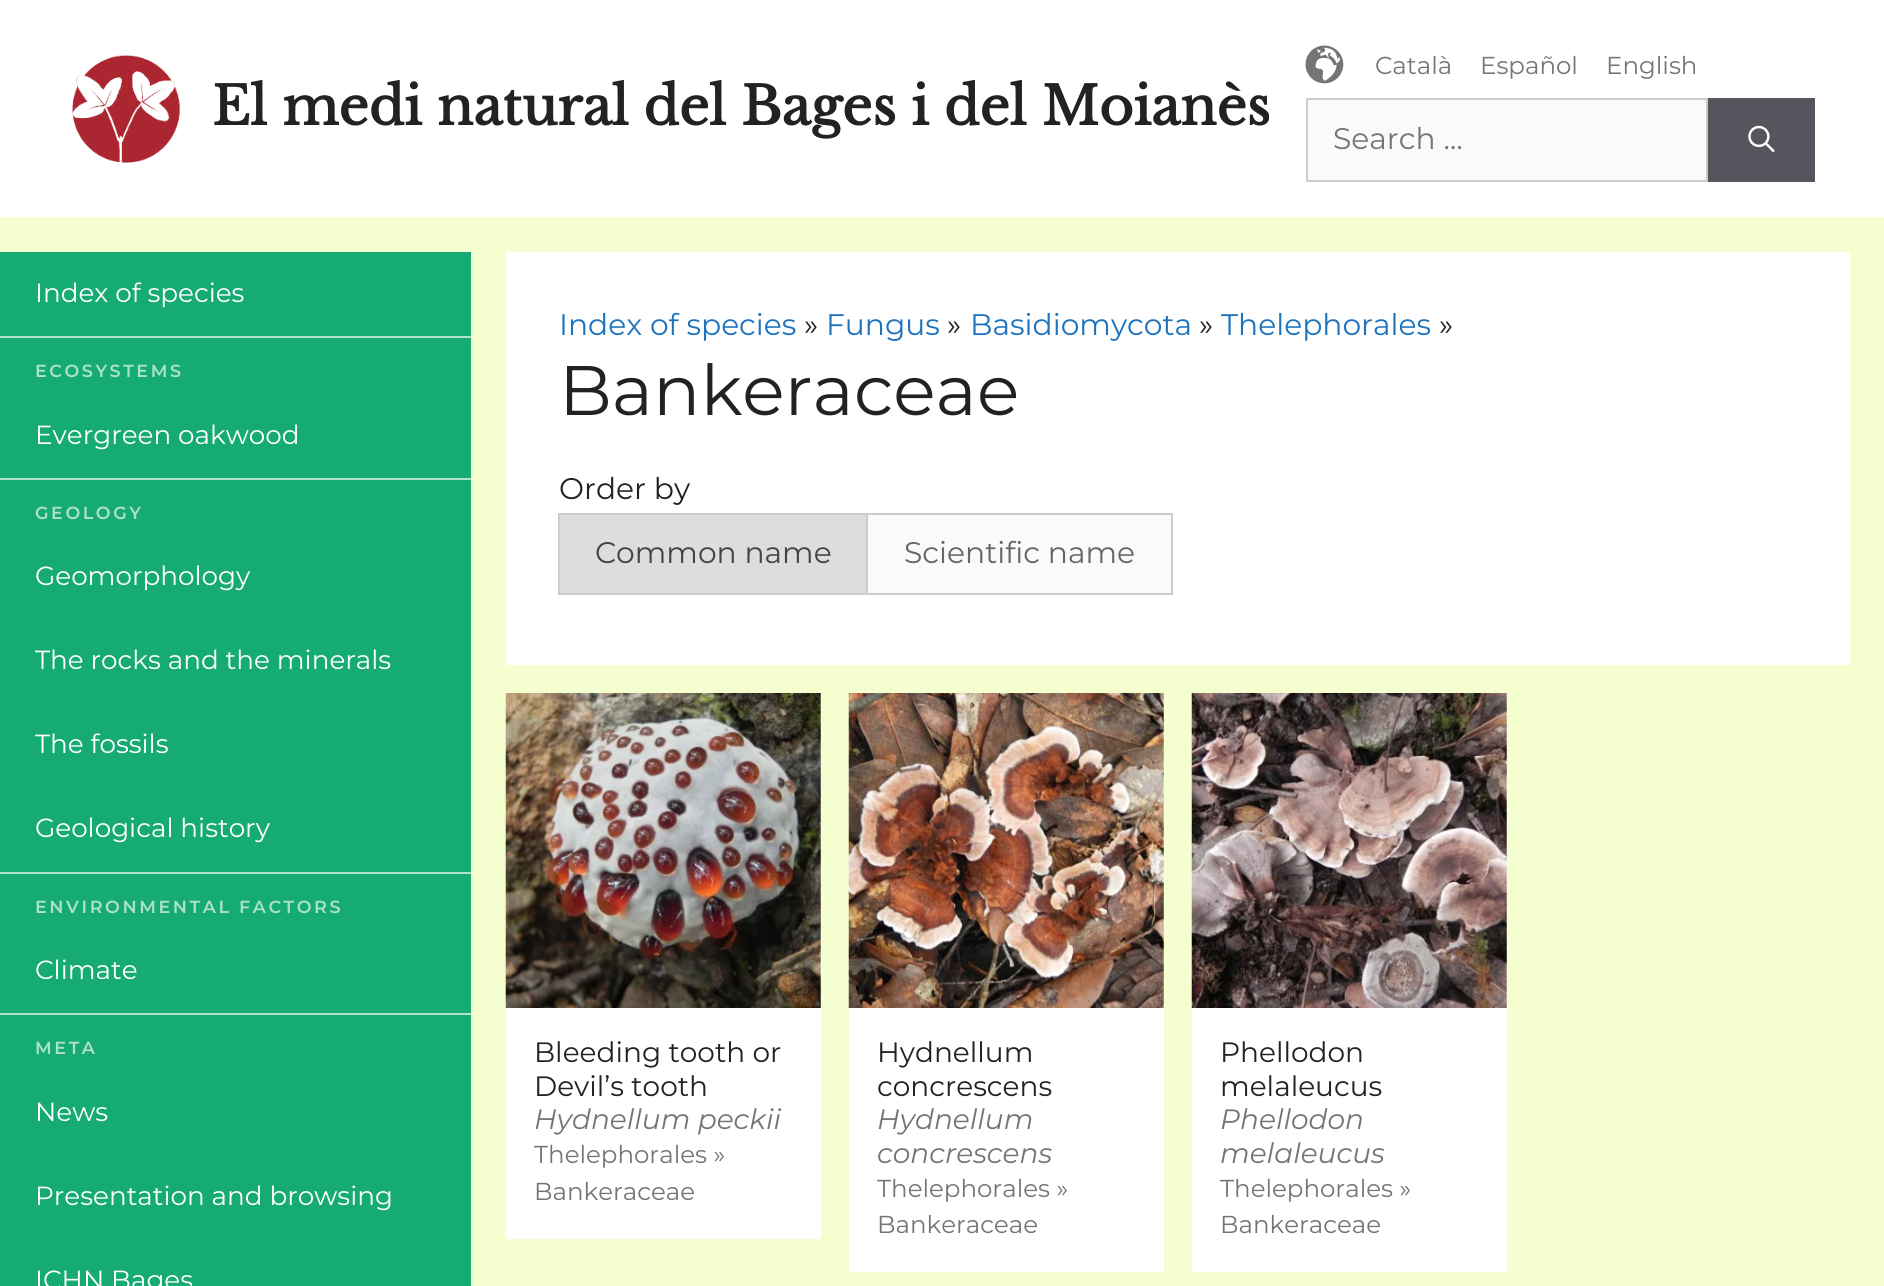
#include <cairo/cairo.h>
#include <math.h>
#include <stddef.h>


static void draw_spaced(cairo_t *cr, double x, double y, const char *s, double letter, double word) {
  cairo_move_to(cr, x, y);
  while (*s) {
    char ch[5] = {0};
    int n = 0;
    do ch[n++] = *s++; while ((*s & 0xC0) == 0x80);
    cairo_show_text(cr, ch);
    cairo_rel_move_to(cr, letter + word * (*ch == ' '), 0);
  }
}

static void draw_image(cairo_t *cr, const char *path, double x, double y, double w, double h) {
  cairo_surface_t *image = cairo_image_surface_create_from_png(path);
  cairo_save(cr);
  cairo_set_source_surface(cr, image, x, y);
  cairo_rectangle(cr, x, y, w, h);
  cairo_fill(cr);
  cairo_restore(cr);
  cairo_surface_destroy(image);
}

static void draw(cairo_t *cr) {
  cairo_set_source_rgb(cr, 244 / 255.0, 254 / 255.0, 207 / 255.0);
  cairo_paint(cr);
  cairo_set_source_rgb(cr, 1, 1, 1);
  cairo_rectangle(cr, 0, 0, 1884, 217);
  cairo_fill(cr);
  draw_image(cr, "images/1.png", 72, 55, 109, 108);
  draw_image(cr, "images/2.png", 1305, 45, 39, 39);
  cairo_set_source_rgb(cr, 250 / 255.0, 250 / 255.0, 250 / 255.0);
  cairo_rectangle(cr, 1307, 99, 400, 82);
  cairo_fill_preserve(cr);
  cairo_set_source_rgb(cr, 204 / 255.0, 204 / 255.0, 204 / 255.0);
  cairo_stroke(cr);
  cairo_set_source_rgb(cr, 85 / 255.0, 85 / 255.0, 94 / 255.0);
  cairo_rectangle(cr, 1708, 98, 107, 84);
  cairo_fill(cr);
  draw_image(cr, "images/3.png", 1748, 125, 27, 27);
  cairo_set_source_rgb(cr, 22 / 255.0, 170 / 255.0, 116 / 255.0);
  cairo_rectangle(cr, 0, 252, 471, 1034);
  cairo_fill(cr);
  cairo_set_source_rgb(cr, 173 / 255.0, 225 / 255.0, 206 / 255.0);
  cairo_rectangle(cr, 0, 336, 471, 2);
  cairo_fill(cr);
  cairo_rectangle(cr, 0, 478, 471, 2);
  cairo_fill(cr);
  cairo_rectangle(cr, 0, 872, 471, 2);
  cairo_fill(cr);
  cairo_rectangle(cr, 0, 1013, 471, 2);
  cairo_fill(cr);
  cairo_set_source_rgb(cr, 1, 1, 1);
  cairo_rectangle(cr, 506, 252, 1344, 413);
  cairo_fill(cr);
  cairo_set_source_rgb(cr, 221 / 255.0, 221 / 255.0, 221 / 255.0);
  cairo_rectangle(cr, 559, 514, 308, 80);
  cairo_fill_preserve(cr);
  cairo_set_source_rgb(cr, 204 / 255.0, 204 / 255.0, 204 / 255.0);
  cairo_stroke(cr);
  cairo_set_source_rgb(cr, 250 / 255.0, 250 / 255.0, 250 / 255.0);
  cairo_rectangle(cr, 868, 515, 303, 78);
  cairo_fill(cr);
  cairo_set_source_rgb(cr, 204 / 255.0, 204 / 255.0, 204 / 255.0);
  cairo_rectangle(cr, 868, 513, 305, 2);
  cairo_fill(cr);
  cairo_rectangle(cr, 1171, 513, 2, 82);
  cairo_fill(cr);
  cairo_rectangle(cr, 868, 593, 305, 2);
  cairo_fill(cr);
  cairo_set_source_rgb(cr, 1, 1, 1);
  cairo_rectangle(cr, 506, 693, 315, 546);
  cairo_fill(cr);
  draw_image(cr, "images/4.png", 505, 693, 316, 315);
  cairo_rectangle(cr, 849, 693, 315, 579);
  cairo_fill(cr);
  draw_image(cr, "images/5.png", 848, 693, 316, 315);
  cairo_rectangle(cr, 1192, 693, 315, 579);
  cairo_fill(cr);
  draw_image(cr, "images/6.png", 1191, 693, 316, 315);
  cairo_select_font_face(cr, "Libre Baskerville", CAIRO_FONT_SLANT_NORMAL, CAIRO_FONT_WEIGHT_BOLD);
  cairo_set_font_size(cr, 52.5);
  cairo_set_source_rgb(cr, 34 / 255.0, 34 / 255.0, 34 / 255.0);
  cairo_move_to(cr, 212, 125);
  cairo_show_text(cr, "El medi natural del Bages i del Moianès");
  cairo_select_font_face(cr, "Montserrat", CAIRO_FONT_SLANT_NORMAL, CAIRO_FONT_WEIGHT_NORMAL);
  cairo_set_font_size(cr, 24.5);
  cairo_set_source_rgb(cr, 117 / 255.0, 117 / 255.0, 117 / 255.0);
  cairo_move_to(cr, 1375, 74);
  cairo_show_text(cr, "Català");
  cairo_move_to(cr, 1480, 74);
  cairo_show_text(cr, "Español");
  cairo_move_to(cr, 1606, 74);
  cairo_show_text(cr, "English");
  cairo_set_font_size(cr, 29.75);
  cairo_move_to(cr, 1333, 149);
  cairo_show_text(cr, "Search …");
  cairo_set_font_size(cr, 26.25);
  cairo_set_source_rgb(cr, 1, 1, 1);
  cairo_move_to(cr, 35, 302);
  cairo_show_text(cr, "Index of species");
  cairo_select_font_face(cr, "Montserrat SemiBold", CAIRO_FONT_SLANT_NORMAL, CAIRO_FONT_WEIGHT_NORMAL);
  cairo_set_font_size(cr, 17.5);
  cairo_set_source_rgb(cr, 173 / 255.0, 225 / 255.0, 206 / 255.0);
  draw_spaced(cr, 35, 377, "ECOSYSTEMS", 2.6, 0);
  cairo_select_font_face(cr, "Montserrat", CAIRO_FONT_SLANT_NORMAL, CAIRO_FONT_WEIGHT_NORMAL);
  cairo_set_font_size(cr, 26.25);
  cairo_set_source_rgb(cr, 1, 1, 1);
  cairo_move_to(cr, 35, 444);
  cairo_show_text(cr, "Evergreen oakwood");
  cairo_select_font_face(cr, "Montserrat SemiBold", CAIRO_FONT_SLANT_NORMAL, CAIRO_FONT_WEIGHT_NORMAL);
  cairo_set_font_size(cr, 17.5);
  cairo_set_source_rgb(cr, 173 / 255.0, 225 / 255.0, 206 / 255.0);
  draw_spaced(cr, 35, 519, "GEOLOGY", 2.6, 0);
  cairo_select_font_face(cr, "Montserrat", CAIRO_FONT_SLANT_NORMAL, CAIRO_FONT_WEIGHT_NORMAL);
  cairo_set_font_size(cr, 26.25);
  cairo_set_source_rgb(cr, 1, 1, 1);
  cairo_move_to(cr, 35, 585);
  cairo_show_text(cr, "Geomorphology");
  cairo_move_to(cr, 35, 669);
  cairo_show_text(cr, "The rocks and the minerals");
  cairo_move_to(cr, 35, 753);
  cairo_show_text(cr, "The fossils");
  cairo_move_to(cr, 35, 837);
  cairo_show_text(cr, "Geological history");
  cairo_select_font_face(cr, "Montserrat SemiBold", CAIRO_FONT_SLANT_NORMAL, CAIRO_FONT_WEIGHT_NORMAL);
  cairo_set_font_size(cr, 17.5);
  cairo_set_source_rgb(cr, 173 / 255.0, 225 / 255.0, 206 / 255.0);
  draw_spaced(cr, 35, 913, "ENVIRONMENTAL FACTORS", 2.6, 0);
  cairo_select_font_face(cr, "Montserrat", CAIRO_FONT_SLANT_NORMAL, CAIRO_FONT_WEIGHT_NORMAL);
  cairo_set_font_size(cr, 26.25);
  cairo_set_source_rgb(cr, 1, 1, 1);
  cairo_move_to(cr, 35, 979);
  cairo_show_text(cr, "Climate");
  cairo_select_font_face(cr, "Montserrat SemiBold", CAIRO_FONT_SLANT_NORMAL, CAIRO_FONT_WEIGHT_NORMAL);
  cairo_set_font_size(cr, 17.5);
  cairo_set_source_rgb(cr, 173 / 255.0, 225 / 255.0, 206 / 255.0);
  draw_spaced(cr, 35, 1054, "META", 2.6, 0);
  cairo_select_font_face(cr, "Montserrat", CAIRO_FONT_SLANT_NORMAL, CAIRO_FONT_WEIGHT_NORMAL);
  cairo_set_font_size(cr, 26.25);
  cairo_set_source_rgb(cr, 1, 1, 1);
  cairo_move_to(cr, 35, 1121);
  cairo_show_text(cr, "News");
  cairo_move_to(cr, 35, 1205);
  cairo_show_text(cr, "Presentation and browsing");
  cairo_move_to(cr, 35, 1289);
  cairo_show_text(cr, "ICHN Bages");
  cairo_set_font_size(cr, 29.75);
  cairo_set_source_rgb(cr, 30 / 255.0, 115 / 255.0, 190 / 255.0);
  cairo_move_to(cr, 559, 335);
  cairo_show_text(cr, "Index of species");
  cairo_set_source_rgb(cr, 34 / 255.0, 34 / 255.0, 34 / 255.0);
  cairo_move_to(cr, 804, 335);
  cairo_show_text(cr, "»");
  cairo_set_source_rgb(cr, 30 / 255.0, 115 / 255.0, 190 / 255.0);
  cairo_move_to(cr, 826, 335);
  cairo_show_text(cr, "Fungus");
  cairo_set_source_rgb(cr, 34 / 255.0, 34 / 255.0, 34 / 255.0);
  cairo_move_to(cr, 947, 335);
  cairo_show_text(cr, "»");
  cairo_set_source_rgb(cr, 30 / 255.0, 115 / 255.0, 190 / 255.0);
  cairo_move_to(cr, 970, 335);
  cairo_show_text(cr, "Basidiomycota");
  cairo_set_source_rgb(cr, 34 / 255.0, 34 / 255.0, 34 / 255.0);
  cairo_move_to(cr, 1199, 335);
  cairo_show_text(cr, "»");
  cairo_set_source_rgb(cr, 30 / 255.0, 115 / 255.0, 190 / 255.0);
  cairo_move_to(cr, 1221, 335);
  cairo_show_text(cr, "Thelephorales");
  cairo_set_source_rgb(cr, 34 / 255.0, 34 / 255.0, 34 / 255.0);
  cairo_move_to(cr, 1439, 335);
  cairo_show_text(cr, "»");
  cairo_set_font_size(cr, 70);
  cairo_move_to(cr, 559, 415);
  cairo_show_text(cr, "Bankeraceae");
  cairo_set_font_size(cr, 29.75);
  cairo_move_to(cr, 559, 499);
  cairo_show_text(cr, "Order by");
  cairo_set_source_rgb(cr, 68 / 255.0, 68 / 255.0, 68 / 255.0);
  cairo_move_to(cr, 595, 563);
  cairo_show_text(cr, "Common name");
  cairo_set_source_rgb(cr, 102 / 255.0, 102 / 255.0, 102 / 255.0);
  cairo_move_to(cr, 904, 563);
  cairo_show_text(cr, "Scientific name");
  cairo_set_font_size(cr, 28);
  cairo_set_source_rgb(cr, 34 / 255.0, 34 / 255.0, 34 / 255.0);
  cairo_move_to(cr, 534, 1062);
  cairo_show_text(cr, "Bleeding tooth or");
  cairo_move_to(cr, 534, 1096);
  cairo_show_text(cr, "Devil’s tooth");
  cairo_select_font_face(cr, "Montserrat", CAIRO_FONT_SLANT_ITALIC, CAIRO_FONT_WEIGHT_NORMAL);
  cairo_set_source_rgb(cr, 117 / 255.0, 117 / 255.0, 117 / 255.0);
  cairo_move_to(cr, 534, 1129);
  cairo_show_text(cr, "Hydnellum peckii");
  cairo_select_font_face(cr, "Montserrat", CAIRO_FONT_SLANT_NORMAL, CAIRO_FONT_WEIGHT_NORMAL);
  cairo_set_font_size(cr, 24.5);
  cairo_move_to(cr, 534, 1163);
  cairo_show_text(cr, "Thelephorales »");
  cairo_move_to(cr, 534, 1200);
  cairo_show_text(cr, "Bankeraceae");
  cairo_set_font_size(cr, 28);
  cairo_set_source_rgb(cr, 34 / 255.0, 34 / 255.0, 34 / 255.0);
  cairo_move_to(cr, 877, 1062);
  cairo_show_text(cr, "Hydnellum");
  cairo_move_to(cr, 877, 1096);
  cairo_show_text(cr, "concrescens");
  cairo_select_font_face(cr, "Montserrat", CAIRO_FONT_SLANT_ITALIC, CAIRO_FONT_WEIGHT_NORMAL);
  cairo_set_source_rgb(cr, 117 / 255.0, 117 / 255.0, 117 / 255.0);
  cairo_move_to(cr, 877, 1129);
  cairo_show_text(cr, "Hydnellum");
  cairo_move_to(cr, 877, 1163);
  cairo_show_text(cr, "concrescens");
  cairo_select_font_face(cr, "Montserrat", CAIRO_FONT_SLANT_NORMAL, CAIRO_FONT_WEIGHT_NORMAL);
  cairo_set_font_size(cr, 24.5);
  cairo_move_to(cr, 877, 1197);
  cairo_show_text(cr, "Thelephorales »");
  cairo_move_to(cr, 877, 1233);
  cairo_show_text(cr, "Bankeraceae");
  cairo_set_font_size(cr, 28);
  cairo_set_source_rgb(cr, 34 / 255.0, 34 / 255.0, 34 / 255.0);
  cairo_move_to(cr, 1220, 1062);
  cairo_show_text(cr, "Phellodon");
  cairo_move_to(cr, 1220, 1096);
  cairo_show_text(cr, "melaleucus");
  cairo_select_font_face(cr, "Montserrat", CAIRO_FONT_SLANT_ITALIC, CAIRO_FONT_WEIGHT_NORMAL);
  cairo_set_source_rgb(cr, 117 / 255.0, 117 / 255.0, 117 / 255.0);
  cairo_move_to(cr, 1220, 1129);
  cairo_show_text(cr, "Phellodon");
  cairo_move_to(cr, 1220, 1163);
  cairo_show_text(cr, "melaleucus");
  cairo_select_font_face(cr, "Montserrat", CAIRO_FONT_SLANT_NORMAL, CAIRO_FONT_WEIGHT_NORMAL);
  cairo_set_font_size(cr, 24.5);
  cairo_move_to(cr, 1220, 1197);
  cairo_show_text(cr, "Thelephorales »");
  cairo_move_to(cr, 1220, 1233);
  cairo_show_text(cr, "Bankeraceae");
}

int main(void) {
  cairo_surface_t *surface = cairo_image_surface_create(CAIRO_FORMAT_RGB24, 1884, 1286);
  cairo_t *cr = cairo_create(surface);
  cairo_font_options_t *options = cairo_font_options_create();
  cairo_font_options_set_hint_metrics(options, CAIRO_HINT_METRICS_OFF);
  cairo_font_options_set_hint_style(options, CAIRO_HINT_STYLE_NONE);
  cairo_set_font_options(cr, options);
  cairo_set_miter_limit(cr, 4);
  draw(cr);
  cairo_surface_write_to_png(surface, "out.png");
  cairo_font_options_destroy(options);
  cairo_destroy(cr);
  cairo_surface_destroy(surface);
  return 0;
}
